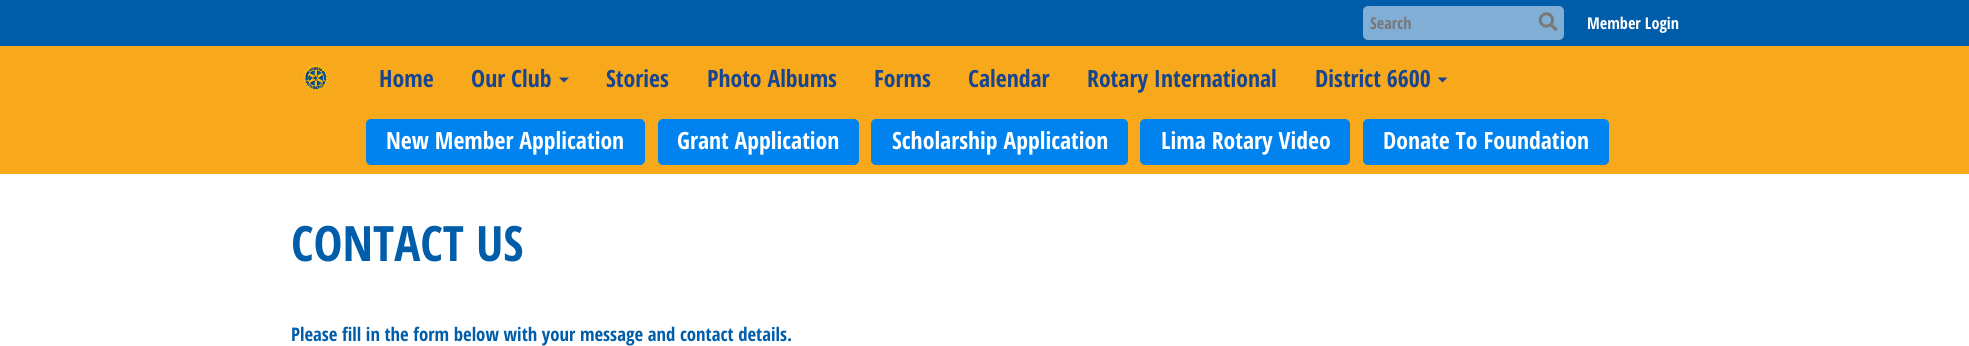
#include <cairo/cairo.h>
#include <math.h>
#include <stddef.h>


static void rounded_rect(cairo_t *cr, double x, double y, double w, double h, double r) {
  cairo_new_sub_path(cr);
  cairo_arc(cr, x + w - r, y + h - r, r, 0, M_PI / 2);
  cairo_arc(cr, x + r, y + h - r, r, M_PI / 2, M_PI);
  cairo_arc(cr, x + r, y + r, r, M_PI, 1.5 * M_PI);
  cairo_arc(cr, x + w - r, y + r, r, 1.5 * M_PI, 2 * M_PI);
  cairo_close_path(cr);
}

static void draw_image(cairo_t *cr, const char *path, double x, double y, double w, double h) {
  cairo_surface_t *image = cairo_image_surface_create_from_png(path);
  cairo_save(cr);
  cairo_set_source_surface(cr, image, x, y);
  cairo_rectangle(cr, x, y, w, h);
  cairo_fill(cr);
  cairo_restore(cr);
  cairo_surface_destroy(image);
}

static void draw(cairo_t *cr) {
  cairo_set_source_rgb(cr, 1, 1, 1);
  cairo_paint(cr);
  cairo_set_source_rgb(cr, 0, 93 / 255.0, 170 / 255.0);
  cairo_rectangle(cr, 0, 0, 1969, 46);
  cairo_fill(cr);
  cairo_set_source_rgb(cr, 128 / 255.0, 174 / 255.0, 213 / 255.0);
  rounded_rect(cr, 1363, 6, 201, 34, 5);
  cairo_fill(cr);
  draw_image(cr, "images/1.png", 1538, 12, 20, 19);
  cairo_set_source_rgb(cr, 247 / 255.0, 168 / 255.0, 27 / 255.0);
  cairo_rectangle(cr, 0, 46, 1969, 128);
  cairo_fill(cr);
  draw_image(cr, "images/2.png", 302, 64, 28, 28);
  cairo_set_source_rgb(cr, 23 / 255.0, 69 / 255.0, 143 / 255.0);
  cairo_new_path(cr);
  cairo_move_to(cr, 559, 77.5);
  cairo_line_to(cr, 569, 77.5);
  cairo_line_to(cr, 564, 82.5);
  cairo_close_path(cr);
  cairo_fill(cr);
  cairo_new_path(cr);
  cairo_move_to(cr, 1437.5, 77.5);
  cairo_line_to(cr, 1447.5, 77.5);
  cairo_line_to(cr, 1442.5, 82.5);
  cairo_close_path(cr);
  cairo_fill(cr);
  cairo_set_source_rgb(cr, 0, 131 / 255.0, 239 / 255.0);
  rounded_rect(cr, 366.5, 119.5, 278, 45, 4.5);
  cairo_fill_preserve(cr);
  cairo_set_line_width(cr, 1);
  cairo_stroke(cr);
  rounded_rect(cr, 658.5, 119.5, 200, 45, 4.5);
  cairo_fill_preserve(cr);
  cairo_stroke(cr);
  rounded_rect(cr, 871.5, 119.5, 256, 45, 4.5);
  cairo_fill_preserve(cr);
  cairo_stroke(cr);
  rounded_rect(cr, 1140.5, 119.5, 209, 45, 4.5);
  cairo_fill_preserve(cr);
  cairo_stroke(cr);
  rounded_rect(cr, 1363.5, 119.5, 245, 45, 4.5);
  cairo_fill_preserve(cr);
  cairo_stroke(cr);
  cairo_select_font_face(cr, "Open Sans Condensed", CAIRO_FONT_SLANT_NORMAL, CAIRO_FONT_WEIGHT_BOLD);
  cairo_set_font_size(cr, 16.25);
  cairo_set_source_rgb(cr, 119 / 255.0, 119 / 255.0, 119 / 255.0);
  cairo_move_to(cr, 1370, 29);
  cairo_show_text(cr, "Search");
  cairo_set_source_rgb(cr, 1, 1, 1);
  cairo_move_to(cr, 1587, 29);
  cairo_show_text(cr, "Member Login");
  cairo_set_font_size(cr, 23.75);
  cairo_set_source_rgb(cr, 23 / 255.0, 69 / 255.0, 143 / 255.0);
  cairo_move_to(cr, 379, 87);
  cairo_show_text(cr, "Home");
  cairo_move_to(cr, 471, 87);
  cairo_show_text(cr, "Our Club");
  cairo_move_to(cr, 606, 87);
  cairo_show_text(cr, "Stories");
  cairo_move_to(cr, 707, 87);
  cairo_show_text(cr, "Photo Albums");
  cairo_move_to(cr, 874, 87);
  cairo_show_text(cr, "Forms");
  cairo_move_to(cr, 968, 87);
  cairo_show_text(cr, "Calendar");
  cairo_move_to(cr, 1087, 87);
  cairo_show_text(cr, "Rotary International");
  cairo_move_to(cr, 1315, 87);
  cairo_show_text(cr, "District 6600");
  cairo_set_source_rgb(cr, 1, 1, 1);
  cairo_move_to(cr, 386, 149);
  cairo_show_text(cr, "New Member Application");
  cairo_move_to(cr, 677, 149);
  cairo_show_text(cr, "Grant Application");
  cairo_move_to(cr, 892, 149);
  cairo_show_text(cr, "Scholarship Application");
  cairo_move_to(cr, 1161, 149);
  cairo_show_text(cr, "Lima Rotary Video");
  cairo_move_to(cr, 1383, 149);
  cairo_show_text(cr, "Donate To Foundation");
  cairo_set_font_size(cr, 48.75);
  cairo_set_source_rgb(cr, 0, 93 / 255.0, 170 / 255.0);
  cairo_move_to(cr, 291, 261);
  cairo_show_text(cr, "CONTACT US");
  cairo_set_font_size(cr, 18.75);
  cairo_move_to(cr, 291, 341);
  cairo_show_text(cr, "Please fill in the form below with your message and contact details.");
}

int main(void) {
  cairo_surface_t *surface = cairo_image_surface_create(CAIRO_FORMAT_RGB24, 1969, 346);
  cairo_t *cr = cairo_create(surface);
  cairo_font_options_t *options = cairo_font_options_create();
  cairo_font_options_set_hint_metrics(options, CAIRO_HINT_METRICS_OFF);
  cairo_font_options_set_hint_style(options, CAIRO_HINT_STYLE_NONE);
  cairo_set_font_options(cr, options);
  cairo_set_miter_limit(cr, 4);
  draw(cr);
  cairo_surface_write_to_png(surface, "out.png");
  cairo_font_options_destroy(options);
  cairo_destroy(cr);
  cairo_surface_destroy(surface);
  return 0;
}
